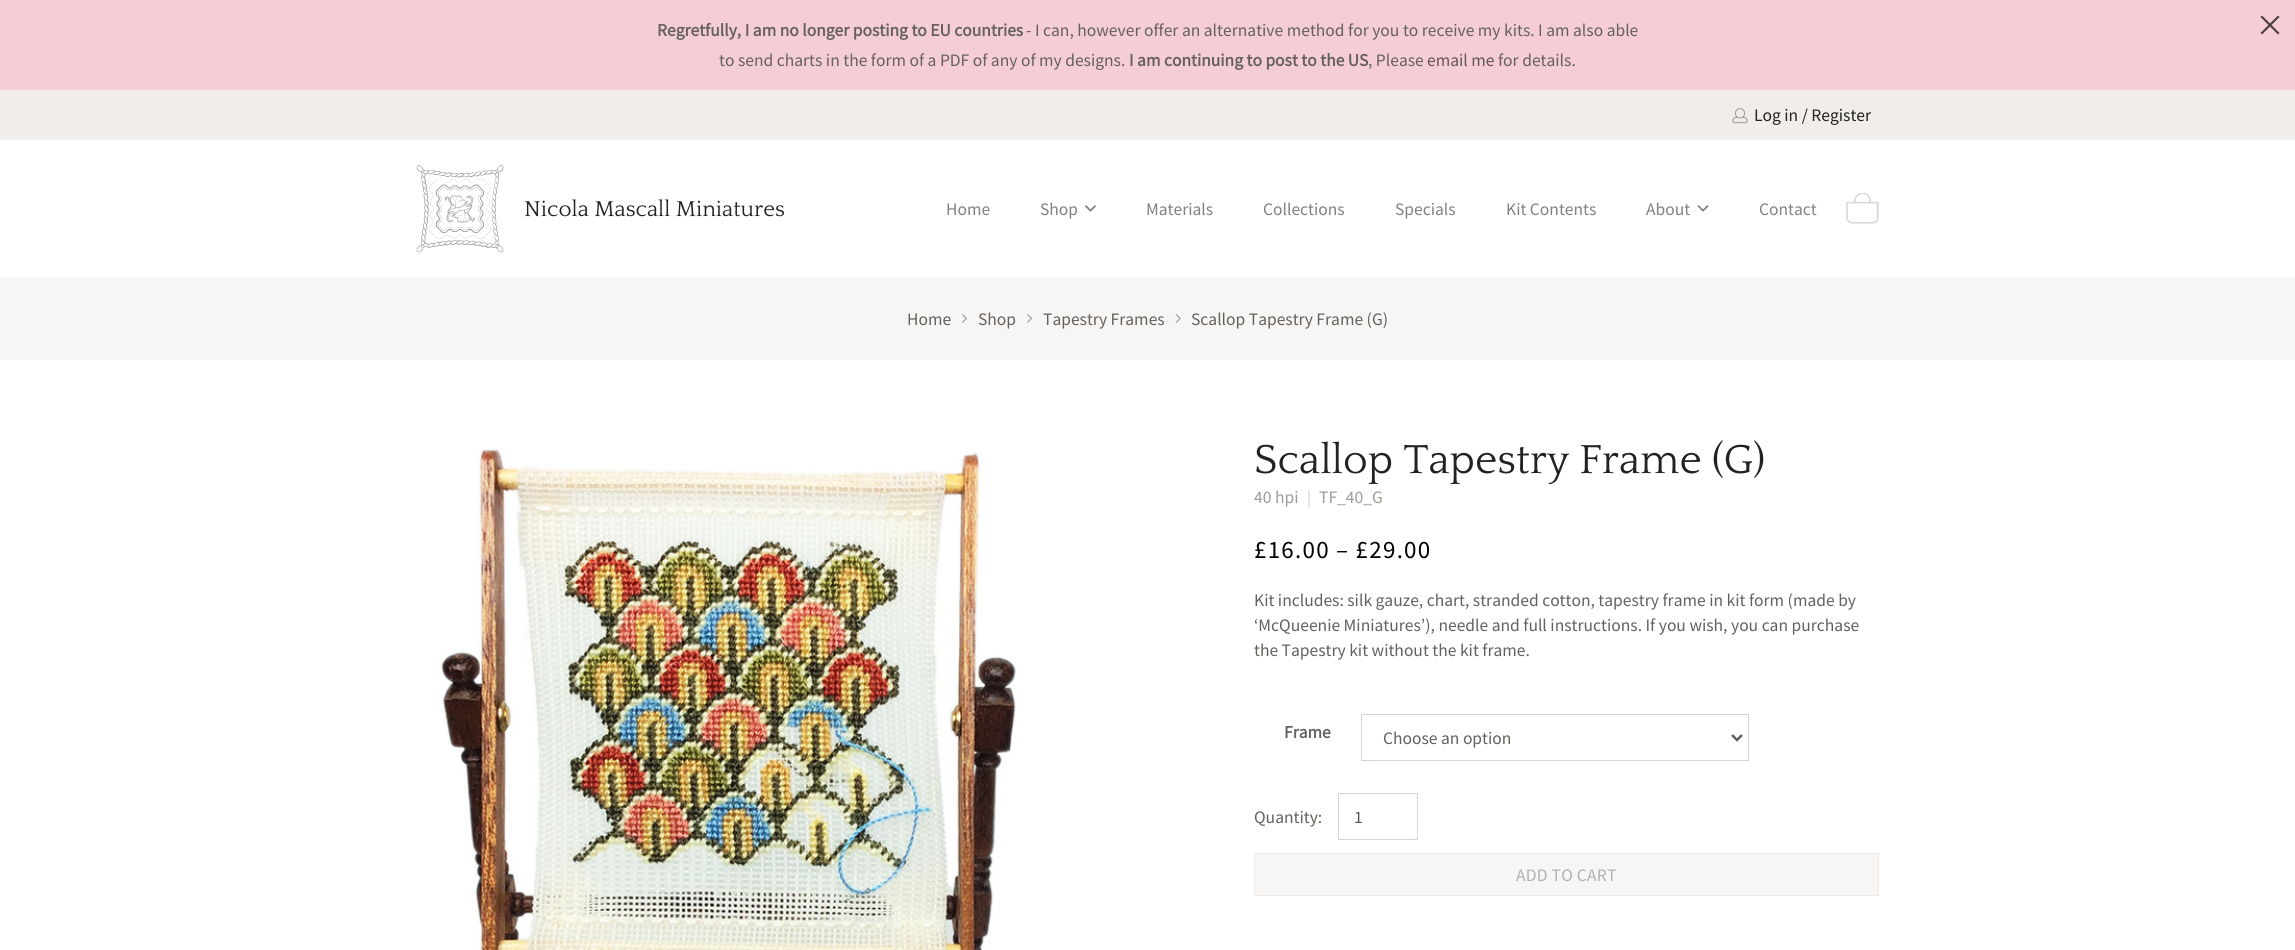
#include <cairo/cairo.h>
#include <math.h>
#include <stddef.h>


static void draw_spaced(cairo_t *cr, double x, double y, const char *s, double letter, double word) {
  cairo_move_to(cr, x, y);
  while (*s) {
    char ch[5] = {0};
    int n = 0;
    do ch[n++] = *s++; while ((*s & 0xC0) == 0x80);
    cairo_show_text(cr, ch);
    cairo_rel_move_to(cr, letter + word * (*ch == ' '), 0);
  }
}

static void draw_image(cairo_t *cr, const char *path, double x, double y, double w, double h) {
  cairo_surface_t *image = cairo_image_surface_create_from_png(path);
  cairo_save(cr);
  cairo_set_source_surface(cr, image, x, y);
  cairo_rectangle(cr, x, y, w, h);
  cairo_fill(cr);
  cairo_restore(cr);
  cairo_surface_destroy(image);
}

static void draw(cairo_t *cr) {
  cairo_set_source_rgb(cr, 1, 1, 1);
  cairo_paint(cr);
  cairo_set_source_rgb(cr, 245 / 255.0, 205 / 255.0, 215 / 255.0);
  cairo_rectangle(cr, 0, 0, 2295, 90);
  cairo_fill(cr);
  cairo_set_source_rgb(cr, 74 / 255.0, 62 / 255.0, 65 / 255.0);
  cairo_new_path(cr);
  cairo_move_to(cr, 2262, 15.5);
  cairo_line_to(cr, 2279.5, 33);
  cairo_line_to(cr, 2278, 34.5);
  cairo_line_to(cr, 2260.5, 17);
  cairo_close_path(cr);
  cairo_fill(cr);
  cairo_new_path(cr);
  cairo_move_to(cr, 2260.5, 33);
  cairo_line_to(cr, 2278, 15.5);
  cairo_line_to(cr, 2279.5, 17);
  cairo_line_to(cr, 2262, 34.5);
  cairo_close_path(cr);
  cairo_fill(cr);
  cairo_set_source_rgb(cr, 240 / 255.0, 237 / 255.0, 234 / 255.0);
  cairo_rectangle(cr, 0, 90, 2295, 50);
  cairo_fill(cr);
  draw_image(cr, "images/1.png", 1732, 108, 16, 16);
  draw_image(cr, "images/2.png", 416, 165, 88, 88);
  draw_image(cr, "images/3.png", 1085, 205, 11, 7);
  draw_image(cr, "images/4.png", 1697, 205, 12, 7);
  draw_image(cr, "images/5.png", 1846, 193, 33, 31);
  cairo_set_source_rgb(cr, 248 / 255.0, 246 / 255.0, 245 / 255.0);
  cairo_rectangle(cr, 0, 278, 2295, 82);
  cairo_fill(cr);
  draw_image(cr, "images/6.png", 962, 314, 5, 9);
  draw_image(cr, "images/6.png", 1027, 314, 5, 9);
  draw_image(cr, "images/7.png", 1175, 314, 6, 9);
  draw_image(cr, "images/8.png", 441, 448, 576, 502);
  cairo_rectangle(cr, 1361.5, 714.5, 387, 46);
  cairo_set_source_rgb(cr, 218 / 255.0, 212 / 255.0, 206 / 255.0);
  cairo_set_line_width(cr, 1);
  cairo_stroke(cr);
  cairo_new_path(cr);
  cairo_move_to(cr, 1732, 735);
  cairo_line_to(cr, 1737, 740);
  cairo_line_to(cr, 1742, 735);
  cairo_set_source_rgb(cr, 100 / 255.0, 96 / 255.0, 92 / 255.0);
  cairo_set_line_width(cr, 2.5);
  cairo_stroke(cr);
  cairo_rectangle(cr, 1338.5, 793.5, 79, 46);
  cairo_set_source_rgb(cr, 218 / 255.0, 212 / 255.0, 206 / 255.0);
  cairo_set_line_width(cr, 1);
  cairo_stroke(cr);
  cairo_set_source_rgb(cr, 248 / 255.0, 246 / 255.0, 245 / 255.0);
  cairo_rectangle(cr, 1254.5, 853.5, 624, 42);
  cairo_fill_preserve(cr);
  cairo_set_source_rgb(cr, 237 / 255.0, 234 / 255.0, 231 / 255.0);
  cairo_stroke(cr);
  cairo_select_font_face(cr, "Source Sans Pro", CAIRO_FONT_SLANT_NORMAL, CAIRO_FONT_WEIGHT_BOLD);
  cairo_set_font_size(cr, 17.5);
  cairo_set_source_rgb(cr, 100 / 255.0, 96 / 255.0, 92 / 255.0);
  cairo_move_to(cr, 657, 36);
  cairo_show_text(cr, "Regretfully, I am no longer posting to EU countries");
  cairo_select_font_face(cr, "Source Sans Pro", CAIRO_FONT_SLANT_NORMAL, CAIRO_FONT_WEIGHT_NORMAL);
  cairo_move_to(cr, 1026, 36);
  cairo_show_text(cr, "- I can, however offer an alternative method for you to receive my kits. I am also able");
  cairo_move_to(cr, 719, 66);
  cairo_show_text(cr, "to send charts in the form of a PDF of any of my designs.");
  cairo_select_font_face(cr, "Source Sans Pro", CAIRO_FONT_SLANT_NORMAL, CAIRO_FONT_WEIGHT_BOLD);
  cairo_move_to(cr, 1129, 66);
  cairo_show_text(cr, "I am continuing to post to the US");
  cairo_select_font_face(cr, "Source Sans Pro", CAIRO_FONT_SLANT_NORMAL, CAIRO_FONT_WEIGHT_NORMAL);
  cairo_move_to(cr, 1368, 66);
  cairo_show_text(cr, ", Please");
  cairo_set_source_rgb(cr, 97 / 255.0, 85 / 255.0, 88 / 255.0);
  cairo_move_to(cr, 1427, 66);
  cairo_show_text(cr, "email me");
  cairo_set_source_rgb(cr, 100 / 255.0, 96 / 255.0, 92 / 255.0);
  cairo_move_to(cr, 1498, 66);
  cairo_show_text(cr, "for details.");
  cairo_set_source_rgb(cr, 34 / 255.0, 34 / 255.0, 34 / 255.0);
  cairo_move_to(cr, 1754, 121);
  cairo_show_text(cr, "Log in / Register");
  cairo_select_font_face(cr, "Quattrocento", CAIRO_FONT_SLANT_NORMAL, CAIRO_FONT_WEIGHT_NORMAL);
  cairo_set_font_size(cr, 22.5);
  cairo_move_to(cr, 524, 216);
  cairo_show_text(cr, "Nicola Mascall Miniatures");
  cairo_select_font_face(cr, "Source Sans Pro", CAIRO_FONT_SLANT_NORMAL, CAIRO_FONT_WEIGHT_NORMAL);
  cairo_set_font_size(cr, 17.5);
  cairo_set_source_rgb(cr, 131 / 255.0, 128 / 255.0, 125 / 255.0);
  cairo_move_to(cr, 946, 215);
  cairo_show_text(cr, "Home");
  cairo_move_to(cr, 1040, 215);
  cairo_show_text(cr, "Shop");
  cairo_move_to(cr, 1146, 215);
  cairo_show_text(cr, "Materials");
  cairo_move_to(cr, 1263, 215);
  cairo_show_text(cr, "Collections");
  cairo_move_to(cr, 1395, 215);
  cairo_show_text(cr, "Specials");
  cairo_move_to(cr, 1506, 215);
  cairo_show_text(cr, "Kit Contents");
  cairo_move_to(cr, 1646, 215);
  cairo_show_text(cr, "About");
  cairo_move_to(cr, 1759, 215);
  cairo_show_text(cr, "Contact");
  cairo_set_source_rgb(cr, 100 / 255.0, 96 / 255.0, 92 / 255.0);
  cairo_move_to(cr, 907, 325);
  cairo_show_text(cr, "Home");
  cairo_move_to(cr, 978, 325);
  cairo_show_text(cr, "Shop");
  cairo_move_to(cr, 1043, 325);
  cairo_show_text(cr, "Tapestry Frames");
  cairo_move_to(cr, 1191, 325);
  cairo_show_text(cr, "Scallop Tapestry Frame (G)");
  cairo_select_font_face(cr, "Quattrocento", CAIRO_FONT_SLANT_NORMAL, CAIRO_FONT_WEIGHT_NORMAL);
  cairo_set_font_size(cr, 42.5);
  cairo_set_source_rgb(cr, 34 / 255.0, 34 / 255.0, 34 / 255.0);
  cairo_move_to(cr, 1254, 473);
  cairo_show_text(cr, "Scallop Tapestry Frame (G)");
  cairo_select_font_face(cr, "Source Sans Pro", CAIRO_FONT_SLANT_NORMAL, CAIRO_FONT_WEIGHT_NORMAL);
  cairo_set_font_size(cr, 17.5);
  cairo_set_source_rgb(cr, 159 / 255.0, 155 / 255.0, 150 / 255.0);
  cairo_move_to(cr, 1254, 503);
  cairo_show_text(cr, "40 hpi");
  cairo_set_source_rgb(cr, 207 / 255.0, 205 / 255.0, 203 / 255.0);
  cairo_move_to(cr, 1307, 503);
  cairo_show_text(cr, "|");
  cairo_set_source_rgb(cr, 159 / 255.0, 155 / 255.0, 150 / 255.0);
  cairo_move_to(cr, 1319, 503);
  cairo_show_text(cr, "TF_40_G");
  cairo_set_font_size(cr, 25);
  cairo_set_source_rgb(cr, 0, 0, 0);
  draw_spaced(cr, 1254, 558, "£16.00 – £29.00", 1.25, 0);
  cairo_set_font_size(cr, 17.5);
  cairo_set_source_rgb(cr, 100 / 255.0, 96 / 255.0, 92 / 255.0);
  cairo_move_to(cr, 1254, 606);
  cairo_show_text(cr, "Kit includes: silk gauze, chart, stranded cotton, tapestry frame in kit form (made by");
  cairo_move_to(cr, 1254, 631);
  cairo_show_text(cr, "‘McQueenie Miniatures’), needle and full instructions. If you wish, you can purchase");
  cairo_move_to(cr, 1254, 656);
  cairo_show_text(cr, "the Tapestry kit without the kit frame.");
  cairo_select_font_face(cr, "Source Sans Pro", CAIRO_FONT_SLANT_NORMAL, CAIRO_FONT_WEIGHT_BOLD);
  cairo_move_to(cr, 1284, 738);
  cairo_show_text(cr, "Frame");
  cairo_select_font_face(cr, "Source Sans Pro", CAIRO_FONT_SLANT_NORMAL, CAIRO_FONT_WEIGHT_NORMAL);
  cairo_move_to(cr, 1383, 744);
  cairo_show_text(cr, "Choose an option");
  cairo_move_to(cr, 1254, 823);
  cairo_show_text(cr, "Quantity:");
  cairo_set_source_rgb(cr, 85 / 255.0, 85 / 255.0, 85 / 255.0);
  cairo_move_to(cr, 1354, 823);
  cairo_show_text(cr, "1");
  cairo_set_source_rgb(cr, 178 / 255.0, 176 / 255.0, 174 / 255.0);
  draw_spaced(cr, 1516, 881, "ADD TO CART", 0.25, 0);
}

int main(void) {
  cairo_surface_t *surface = cairo_image_surface_create(CAIRO_FORMAT_RGB24, 2295, 950);
  cairo_t *cr = cairo_create(surface);
  cairo_font_options_t *options = cairo_font_options_create();
  cairo_font_options_set_hint_metrics(options, CAIRO_HINT_METRICS_OFF);
  cairo_font_options_set_hint_style(options, CAIRO_HINT_STYLE_NONE);
  cairo_set_font_options(cr, options);
  cairo_set_miter_limit(cr, 4);
  draw(cr);
  cairo_surface_write_to_png(surface, "out.png");
  cairo_font_options_destroy(options);
  cairo_destroy(cr);
  cairo_surface_destroy(surface);
  return 0;
}
